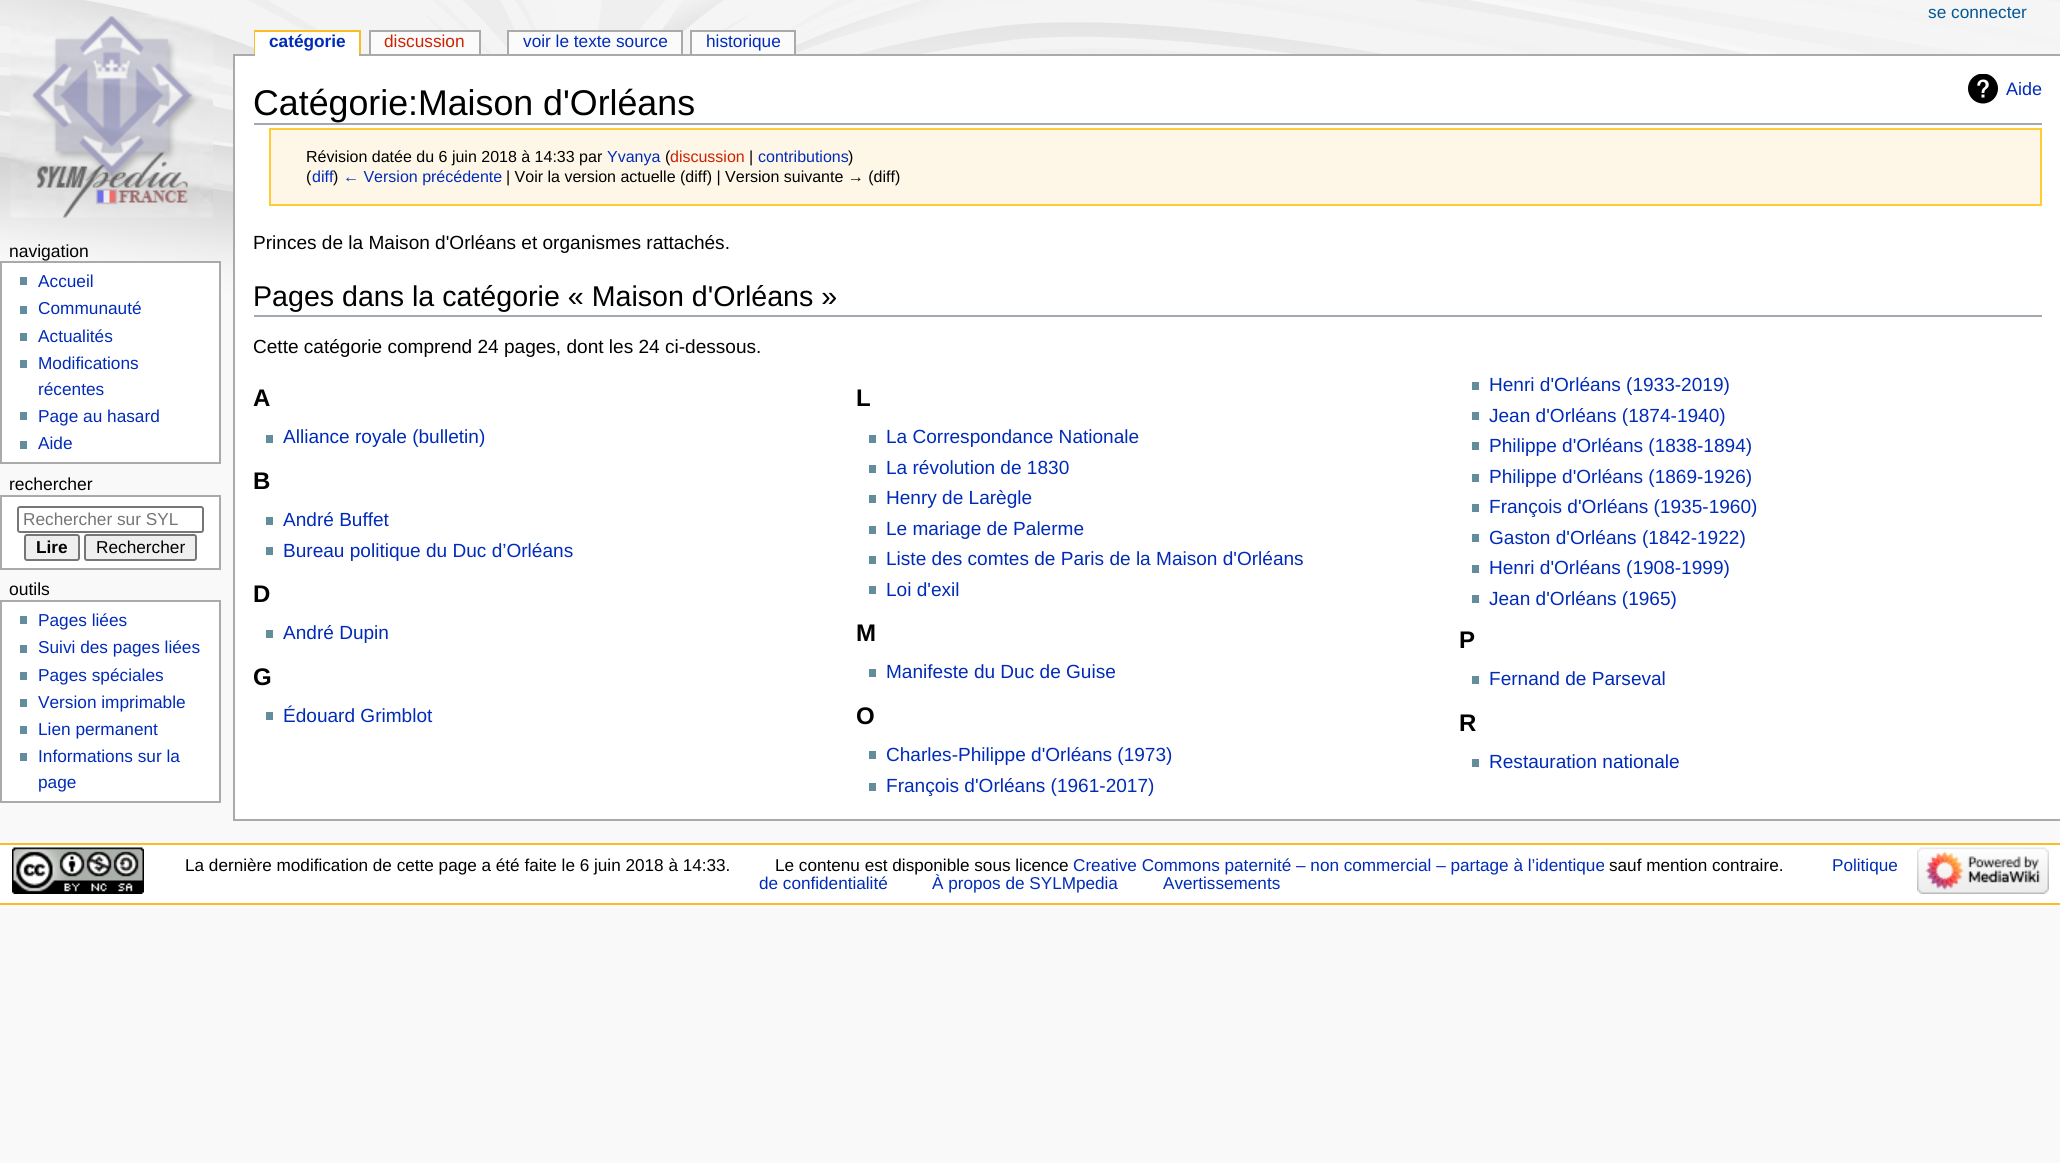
#include <cairo/cairo.h>
#include <math.h>
#include <stddef.h>


static void rounded_rect(cairo_t *cr, double x, double y, double w, double h, double r) {
  cairo_new_sub_path(cr);
  cairo_arc(cr, x + w - r, y + h - r, r, 0, M_PI / 2);
  cairo_arc(cr, x + r, y + h - r, r, M_PI / 2, M_PI);
  cairo_arc(cr, x + r, y + r, r, M_PI, 1.5 * M_PI);
  cairo_arc(cr, x + w - r, y + r, r, 1.5 * M_PI, 2 * M_PI);
  cairo_close_path(cr);
}

static void draw_image(cairo_t *cr, const char *path, double x, double y, double w, double h) {
  cairo_surface_t *image = cairo_image_surface_create_from_png(path);
  cairo_save(cr);
  cairo_set_source_surface(cr, image, x, y);
  cairo_rectangle(cr, x, y, w, h);
  cairo_fill(cr);
  cairo_restore(cr);
  cairo_surface_destroy(image);
}

static void draw(cairo_t *cr) {
  cairo_set_source_rgb(cr, 249 / 255.0, 249 / 255.0, 249 / 255.0);
  cairo_paint(cr);
  draw_image(cr, "images/1.png", 0, 0, 2060, 315);
  draw_image(cr, "images/2.png", 10, 15, 203, 203);
  cairo_set_source_rgb(cr, 250 / 255.0, 189 / 255.0, 35 / 255.0);
  cairo_rectangle(cr, 254, 30, 106, 2);
  cairo_fill(cr);
  cairo_rectangle(cr, 359, 30, 2, 24);
  cairo_fill(cr);
  cairo_rectangle(cr, 254, 30, 2, 24);
  cairo_fill(cr);
  cairo_set_source_rgb(cr, 170 / 255.0, 170 / 255.0, 170 / 255.0);
  cairo_rectangle(cr, 233, 54, 1827, 2);
  cairo_fill(cr);
  cairo_set_source_rgb(cr, 1, 1, 1);
  cairo_rectangle(cr, 255, 32, 104, 24);
  cairo_fill(cr);
  cairo_set_source_rgb(cr, 170 / 255.0, 170 / 255.0, 170 / 255.0);
  cairo_rectangle(cr, 369, 30, 111, 2);
  cairo_fill(cr);
  cairo_rectangle(cr, 479, 30, 2, 24);
  cairo_fill(cr);
  cairo_rectangle(cr, 369, 30, 2, 24);
  cairo_fill(cr);
  cairo_set_source_rgb(cr, 251 / 255.0, 251 / 255.0, 251 / 255.0);
  cairo_rectangle(cr, 371, 32, 108, 22);
  cairo_fill(cr);
  cairo_set_source_rgb(cr, 170 / 255.0, 170 / 255.0, 170 / 255.0);
  cairo_rectangle(cr, 507, 30, 176, 2);
  cairo_fill(cr);
  cairo_rectangle(cr, 681, 30, 2, 24);
  cairo_fill(cr);
  cairo_rectangle(cr, 507, 30, 2, 24);
  cairo_fill(cr);
  cairo_set_source_rgb(cr, 251 / 255.0, 251 / 255.0, 251 / 255.0);
  cairo_rectangle(cr, 509, 32, 172, 22);
  cairo_fill(cr);
  cairo_set_source_rgb(cr, 170 / 255.0, 170 / 255.0, 170 / 255.0);
  cairo_rectangle(cr, 690, 30, 105, 2);
  cairo_fill(cr);
  cairo_rectangle(cr, 794, 30, 2, 24);
  cairo_fill(cr);
  cairo_rectangle(cr, 690, 30, 2, 24);
  cairo_fill(cr);
  cairo_set_source_rgb(cr, 251 / 255.0, 251 / 255.0, 251 / 255.0);
  cairo_rectangle(cr, 692, 32, 102, 22);
  cairo_fill(cr);
  cairo_set_source_rgb(cr, 1, 1, 1);
  cairo_rectangle(cr, 1, 262, 219, 201);
  cairo_fill_preserve(cr);
  cairo_set_source_rgb(cr, 170 / 255.0, 170 / 255.0, 170 / 255.0);
  cairo_stroke(cr);
  cairo_set_source_rgb(cr, 99 / 255.0, 140 / 255.0, 156 / 255.0);
  cairo_rectangle(cr, 20, 277, 7, 8);
  cairo_fill(cr);
  cairo_rectangle(cr, 20, 306, 7, 8);
  cairo_fill(cr);
  cairo_rectangle(cr, 20, 333, 7, 8);
  cairo_fill(cr);
  cairo_rectangle(cr, 20, 360, 7, 8);
  cairo_fill(cr);
  cairo_rectangle(cr, 20, 412, 7, 8);
  cairo_fill(cr);
  cairo_rectangle(cr, 20, 441, 7, 8);
  cairo_fill(cr);
  cairo_set_source_rgb(cr, 1, 1, 1);
  cairo_rectangle(cr, 1, 496, 219, 73);
  cairo_fill_preserve(cr);
  cairo_set_source_rgb(cr, 170 / 255.0, 170 / 255.0, 170 / 255.0);
  cairo_stroke(cr);
  rounded_rect(cr, 18, 507, 185, 25, 2);
  cairo_set_source_rgb(cr, 118 / 255.0, 118 / 255.0, 118 / 255.0);
  cairo_stroke(cr);
  cairo_set_source_rgb(cr, 239 / 255.0, 239 / 255.0, 239 / 255.0);
  rounded_rect(cr, 25, 535, 54, 25, 2);
  cairo_fill_preserve(cr);
  cairo_set_source_rgb(cr, 118 / 255.0, 118 / 255.0, 118 / 255.0);
  cairo_stroke(cr);
  cairo_set_source_rgb(cr, 239 / 255.0, 239 / 255.0, 239 / 255.0);
  rounded_rect(cr, 85, 535, 111, 25, 2);
  cairo_fill_preserve(cr);
  cairo_set_source_rgb(cr, 118 / 255.0, 118 / 255.0, 118 / 255.0);
  cairo_stroke(cr);
  cairo_set_source_rgb(cr, 1, 1, 1);
  cairo_rectangle(cr, 1, 601, 219, 201);
  cairo_fill_preserve(cr);
  cairo_set_source_rgb(cr, 170 / 255.0, 170 / 255.0, 170 / 255.0);
  cairo_stroke(cr);
  cairo_set_source_rgb(cr, 99 / 255.0, 140 / 255.0, 156 / 255.0);
  cairo_rectangle(cr, 20, 616, 7, 8);
  cairo_fill(cr);
  cairo_rectangle(cr, 20, 645, 7, 8);
  cairo_fill(cr);
  cairo_rectangle(cr, 20, 672, 7, 8);
  cairo_fill(cr);
  cairo_rectangle(cr, 20, 699, 7, 8);
  cairo_fill(cr);
  cairo_rectangle(cr, 20, 726, 7, 8);
  cairo_fill(cr);
  cairo_rectangle(cr, 20, 753, 7, 8);
  cairo_fill(cr);
  cairo_set_source_rgb(cr, 1, 1, 1);
  cairo_rectangle(cr, 235, 56, 1825, 763);
  cairo_fill(cr);
  cairo_set_source_rgb(cr, 170 / 255.0, 170 / 255.0, 170 / 255.0);
  cairo_rectangle(cr, 233, 819, 1827, 2);
  cairo_fill(cr);
  cairo_rectangle(cr, 233, 54, 2, 767);
  cairo_fill(cr);
  cairo_set_source_rgb(cr, 162 / 255.0, 169 / 255.0, 177 / 255.0);
  cairo_rectangle(cr, 254, 123, 1788, 2);
  cairo_fill(cr);
  draw_image(cr, "images/3.png", 1968, 74, 30, 30);
  cairo_set_source_rgb(cr, 254 / 255.0, 246 / 255.0, 231 / 255.0);
  cairo_rectangle(cr, 270, 129, 1771, 76);
  cairo_fill_preserve(cr);
  cairo_set_source_rgb(cr, 1, 204 / 255.0, 51 / 255.0);
  cairo_stroke(cr);
  cairo_set_source_rgb(cr, 162 / 255.0, 169 / 255.0, 177 / 255.0);
  cairo_rectangle(cr, 254, 315, 1788, 2);
  cairo_fill(cr);
  cairo_set_source_rgb(cr, 99 / 255.0, 140 / 255.0, 156 / 255.0);
  cairo_rectangle(cr, 266, 435, 7, 8);
  cairo_fill(cr);
  cairo_rectangle(cr, 1472, 382, 7, 8);
  cairo_fill(cr);
  cairo_rectangle(cr, 1472, 412, 7, 8);
  cairo_fill(cr);
  cairo_rectangle(cr, 1472, 442, 7, 8);
  cairo_fill(cr);
  cairo_rectangle(cr, 1472, 474, 7, 8);
  cairo_fill(cr);
  cairo_rectangle(cr, 1472, 504, 7, 8);
  cairo_fill(cr);
  cairo_rectangle(cr, 1472, 534, 7, 8);
  cairo_fill(cr);
  cairo_rectangle(cr, 1472, 565, 7, 8);
  cairo_fill(cr);
  cairo_rectangle(cr, 1472, 595, 7, 8);
  cairo_fill(cr);
  cairo_rectangle(cr, 869, 751, 7, 8);
  cairo_fill(cr);
  cairo_rectangle(cr, 869, 783, 7, 8);
  cairo_fill(cr);
  cairo_rectangle(cr, 266, 517, 7, 8);
  cairo_fill(cr);
  cairo_rectangle(cr, 266, 547, 7, 8);
  cairo_fill(cr);
  cairo_rectangle(cr, 869, 435, 7, 8);
  cairo_fill(cr);
  cairo_rectangle(cr, 869, 465, 7, 8);
  cairo_fill(cr);
  cairo_rectangle(cr, 869, 495, 7, 8);
  cairo_fill(cr);
  cairo_rectangle(cr, 869, 526, 7, 8);
  cairo_fill(cr);
  cairo_rectangle(cr, 869, 556, 7, 8);
  cairo_fill(cr);
  cairo_rectangle(cr, 869, 586, 7, 8);
  cairo_fill(cr);
  cairo_rectangle(cr, 266, 630, 7, 8);
  cairo_fill(cr);
  cairo_rectangle(cr, 869, 669, 7, 8);
  cairo_fill(cr);
  cairo_rectangle(cr, 1472, 676, 7, 8);
  cairo_fill(cr);
  cairo_rectangle(cr, 266, 712, 7, 8);
  cairo_fill(cr);
  cairo_rectangle(cr, 1472, 759, 7, 8);
  cairo_fill(cr);
  cairo_set_source_rgb(cr, 1, 1, 1);
  cairo_rectangle(cr, 0, 845, 2060, 58);
  cairo_fill(cr);
  cairo_set_source_rgb(cr, 250 / 255.0, 189 / 255.0, 35 / 255.0);
  cairo_rectangle(cr, 0, 843, 2060, 2);
  cairo_fill(cr);
  cairo_rectangle(cr, 0, 903, 2060, 2);
  cairo_fill(cr);
  draw_image(cr, "images/4.png", 12, 847, 132, 47);
  draw_image(cr, "images/5.png", 1917, 847, 132, 47);
  cairo_select_font_face(cr, "Liberation Sans", CAIRO_FONT_SLANT_NORMAL, CAIRO_FONT_WEIGHT_NORMAL);
  cairo_set_font_size(cr, 17.25);
  cairo_set_source_rgb(cr, 0, 88 / 255.0, 150 / 255.0);
  cairo_move_to(cr, 1928, 18);
  cairo_show_text(cr, "se connecter");
  cairo_select_font_face(cr, "Liberation Sans", CAIRO_FONT_SLANT_NORMAL, CAIRO_FONT_WEIGHT_BOLD);
  cairo_set_source_rgb(cr, 0, 43 / 255.0, 184 / 255.0);
  cairo_move_to(cr, 269, 47);
  cairo_show_text(cr, "catégorie");
  cairo_select_font_face(cr, "Liberation Sans", CAIRO_FONT_SLANT_NORMAL, CAIRO_FONT_WEIGHT_NORMAL);
  cairo_set_source_rgb(cr, 204 / 255.0, 34 / 255.0, 0);
  cairo_move_to(cr, 384, 47);
  cairo_show_text(cr, "discussion");
  cairo_set_source_rgb(cr, 0, 43 / 255.0, 184 / 255.0);
  cairo_move_to(cr, 523, 47);
  cairo_show_text(cr, "voir le texte source");
  cairo_move_to(cr, 706, 47);
  cairo_show_text(cr, "historique");
  cairo_set_font_size(cr, 17.5);
  cairo_set_source_rgb(cr, 0, 0, 0);
  cairo_move_to(cr, 9, 257);
  cairo_show_text(cr, "navigation");
  cairo_set_font_size(cr, 17.25);
  cairo_set_source_rgb(cr, 0, 43 / 255.0, 184 / 255.0);
  cairo_move_to(cr, 38, 287);
  cairo_show_text(cr, "Accueil");
  cairo_move_to(cr, 38, 314);
  cairo_show_text(cr, "Communauté");
  cairo_move_to(cr, 38, 342);
  cairo_show_text(cr, "Actualités");
  cairo_move_to(cr, 38, 369);
  cairo_show_text(cr, "Modifications");
  cairo_move_to(cr, 38, 395);
  cairo_show_text(cr, "récentes");
  cairo_move_to(cr, 38, 422);
  cairo_show_text(cr, "Page au hasard");
  cairo_move_to(cr, 38, 449);
  cairo_show_text(cr, "Aide");
  cairo_set_font_size(cr, 17.5);
  cairo_set_source_rgb(cr, 0, 0, 0);
  cairo_move_to(cr, 9, 490);
  cairo_show_text(cr, "rechercher");
  cairo_set_font_size(cr, 17.25);
  cairo_set_source_rgb(cr, 117 / 255.0, 117 / 255.0, 117 / 255.0);
  cairo_move_to(cr, 23, 525);
  cairo_show_text(cr, "Rechercher sur SYL");
  cairo_select_font_face(cr, "Liberation Sans", CAIRO_FONT_SLANT_NORMAL, CAIRO_FONT_WEIGHT_BOLD);
  cairo_set_source_rgb(cr, 0, 0, 0);
  cairo_move_to(cr, 36, 553);
  cairo_show_text(cr, "Lire");
  cairo_select_font_face(cr, "Liberation Sans", CAIRO_FONT_SLANT_NORMAL, CAIRO_FONT_WEIGHT_NORMAL);
  cairo_move_to(cr, 96, 553);
  cairo_show_text(cr, "Rechercher");
  cairo_set_font_size(cr, 17.5);
  cairo_move_to(cr, 9, 595);
  cairo_show_text(cr, "outils");
  cairo_set_font_size(cr, 17.25);
  cairo_set_source_rgb(cr, 0, 43 / 255.0, 184 / 255.0);
  cairo_move_to(cr, 38, 626);
  cairo_show_text(cr, "Pages liées");
  cairo_move_to(cr, 38, 653);
  cairo_show_text(cr, "Suivi des pages liées");
  cairo_move_to(cr, 38, 681);
  cairo_show_text(cr, "Pages spéciales");
  cairo_move_to(cr, 38, 708);
  cairo_show_text(cr, "Version imprimable");
  cairo_move_to(cr, 38, 735);
  cairo_show_text(cr, "Lien permanent");
  cairo_move_to(cr, 38, 762);
  cairo_show_text(cr, "Informations sur la");
  cairo_move_to(cr, 38, 788);
  cairo_show_text(cr, "page");
  cairo_set_font_size(cr, 35.75);
  cairo_set_source_rgb(cr, 0, 0, 0);
  cairo_move_to(cr, 253, 115);
  cairo_show_text(cr, "Catégorie:Maison d'Orléans");
  cairo_set_font_size(cr, 18);
  cairo_set_source_rgb(cr, 0, 43 / 255.0, 184 / 255.0);
  cairo_move_to(cr, 2006, 95);
  cairo_show_text(cr, "Aide");
  cairo_set_font_size(cr, 16);
  cairo_set_source_rgb(cr, 0, 0, 0);
  cairo_move_to(cr, 306, 162);
  cairo_show_text(cr, "Révision datée du 6 juin 2018 à 14:33 par");
  cairo_set_source_rgb(cr, 0, 43 / 255.0, 184 / 255.0);
  cairo_move_to(cr, 607, 162);
  cairo_show_text(cr, "Yvanya");
  cairo_set_source_rgb(cr, 0, 0, 0);
  cairo_move_to(cr, 665, 162);
  cairo_show_text(cr, "(");
  cairo_set_source_rgb(cr, 204 / 255.0, 34 / 255.0, 0);
  cairo_move_to(cr, 670, 162);
  cairo_show_text(cr, "discussion");
  cairo_set_source_rgb(cr, 0, 0, 0);
  cairo_move_to(cr, 749, 162);
  cairo_show_text(cr, "|");
  cairo_set_source_rgb(cr, 0, 43 / 255.0, 184 / 255.0);
  cairo_move_to(cr, 758, 162);
  cairo_show_text(cr, "contributions");
  cairo_set_source_rgb(cr, 0, 0, 0);
  cairo_move_to(cr, 848, 162);
  cairo_show_text(cr, ")");
  cairo_move_to(cr, 306, 182);
  cairo_show_text(cr, "(");
  cairo_set_source_rgb(cr, 0, 43 / 255.0, 184 / 255.0);
  cairo_move_to(cr, 312, 182);
  cairo_show_text(cr, "diff");
  cairo_set_source_rgb(cr, 0, 0, 0);
  cairo_move_to(cr, 333, 182);
  cairo_show_text(cr, ")");
  cairo_set_source_rgb(cr, 0, 43 / 255.0, 184 / 255.0);
  cairo_move_to(cr, 343, 182);
  cairo_show_text(cr, "← Version précédente");
  cairo_set_source_rgb(cr, 0, 0, 0);
  cairo_move_to(cr, 506, 182);
  cairo_show_text(cr, "| Voir la version actuelle (diff) | Version suivante → (diff)");
  cairo_set_font_size(cr, 19.05);
  cairo_move_to(cr, 253, 249);
  cairo_show_text(cr, "Princes de la Maison d'Orléans et organismes rattachés.");
  cairo_set_font_size(cr, 28.6);
  cairo_move_to(cr, 253, 306);
  cairo_show_text(cr, "Pages dans la catégorie « Maison d'Orléans »");
  cairo_set_font_size(cr, 19.05);
  cairo_move_to(cr, 253, 353);
  cairo_show_text(cr, "Cette catégorie comprend 24 pages, dont les 24 ci-dessous.");
  cairo_select_font_face(cr, "Liberation Sans", CAIRO_FONT_SLANT_NORMAL, CAIRO_FONT_WEIGHT_BOLD);
  cairo_set_font_size(cr, 24);
  cairo_move_to(cr, 253, 406);
  cairo_show_text(cr, "A");
  cairo_select_font_face(cr, "Liberation Sans", CAIRO_FONT_SLANT_NORMAL, CAIRO_FONT_WEIGHT_NORMAL);
  cairo_set_font_size(cr, 19.05);
  cairo_set_source_rgb(cr, 0, 43 / 255.0, 184 / 255.0);
  cairo_move_to(cr, 283, 443);
  cairo_show_text(cr, "Alliance royale (bulletin)");
  cairo_save(cr);
  cairo_rectangle(cr, 857, 690, 582, 45);
  cairo_clip(cr);
  cairo_select_font_face(cr, "Liberation Sans", CAIRO_FONT_SLANT_NORMAL, CAIRO_FONT_WEIGHT_BOLD);
  cairo_set_font_size(cr, 24);
  cairo_set_source_rgb(cr, 0, 0, 0);
  cairo_move_to(cr, 856, 724);
  cairo_show_text(cr, "O");
  cairo_restore(cr);
  cairo_move_to(cr, 1489, 391);
  cairo_show_text(cr, "Henri d'Orléans (1933-2019)");
  cairo_move_to(cr, 1489, 422);
  cairo_show_text(cr, "Jean d'Orléans (1874-1940)");
  cairo_move_to(cr, 1489, 452);
  cairo_show_text(cr, "Philippe d'Orléans (1838-1894)");
  cairo_move_to(cr, 1489, 483);
  cairo_show_text(cr, "Philippe d'Orléans (1869-1926)");
  cairo_move_to(cr, 1489, 513);
  cairo_show_text(cr, "François d'Orléans (1935-1960)");
  cairo_move_to(cr, 1489, 544);
  cairo_show_text(cr, "Gaston d'Orléans (1842-1922)");
  cairo_move_to(cr, 1489, 574);
  cairo_show_text(cr, "Henri d'Orléans (1908-1999)");
  cairo_move_to(cr, 1489, 605);
  cairo_show_text(cr, "Jean d'Orléans (1965)");
  cairo_move_to(cr, 886, 761);
  cairo_show_text(cr, "Charles-Philippe d'Orléans (1973)");
  cairo_move_to(cr, 886, 792);
  cairo_show_text(cr, "François d'Orléans (1961-2017)");
  cairo_select_font_face(cr, "Liberation Sans", CAIRO_FONT_SLANT_NORMAL, CAIRO_FONT_WEIGHT_BOLD);
  cairo_set_font_size(cr, 24);
  cairo_set_source_rgb(cr, 0, 0, 0);
  cairo_move_to(cr, 253, 489);
  cairo_show_text(cr, "B");
  cairo_select_font_face(cr, "Liberation Sans", CAIRO_FONT_SLANT_NORMAL, CAIRO_FONT_WEIGHT_NORMAL);
  cairo_set_font_size(cr, 19.05);
  cairo_set_source_rgb(cr, 0, 43 / 255.0, 184 / 255.0);
  cairo_move_to(cr, 283, 526);
  cairo_show_text(cr, "André Buffet");
  cairo_move_to(cr, 283, 557);
  cairo_show_text(cr, "Bureau politique du Duc d’Orléans");
  cairo_select_font_face(cr, "Liberation Sans", CAIRO_FONT_SLANT_NORMAL, CAIRO_FONT_WEIGHT_BOLD);
  cairo_set_font_size(cr, 24);
  cairo_set_source_rgb(cr, 0, 0, 0);
  cairo_move_to(cr, 856, 406);
  cairo_show_text(cr, "L");
  cairo_select_font_face(cr, "Liberation Sans", CAIRO_FONT_SLANT_NORMAL, CAIRO_FONT_WEIGHT_NORMAL);
  cairo_set_font_size(cr, 19.05);
  cairo_set_source_rgb(cr, 0, 43 / 255.0, 184 / 255.0);
  cairo_move_to(cr, 886, 443);
  cairo_show_text(cr, "La Correspondance Nationale");
  cairo_move_to(cr, 886, 474);
  cairo_show_text(cr, "La révolution de 1830");
  cairo_move_to(cr, 886, 504);
  cairo_show_text(cr, "Henry de Larègle");
  cairo_move_to(cr, 886, 535);
  cairo_show_text(cr, "Le mariage de Palerme");
  cairo_move_to(cr, 886, 565);
  cairo_show_text(cr, "Liste des comtes de Paris de la Maison d'Orléans");
  cairo_move_to(cr, 886, 596);
  cairo_show_text(cr, "Loi d'exil");
  cairo_select_font_face(cr, "Liberation Sans", CAIRO_FONT_SLANT_NORMAL, CAIRO_FONT_WEIGHT_BOLD);
  cairo_set_font_size(cr, 24);
  cairo_set_source_rgb(cr, 0, 0, 0);
  cairo_move_to(cr, 253, 602);
  cairo_show_text(cr, "D");
  cairo_select_font_face(cr, "Liberation Sans", CAIRO_FONT_SLANT_NORMAL, CAIRO_FONT_WEIGHT_NORMAL);
  cairo_set_font_size(cr, 19.05);
  cairo_set_source_rgb(cr, 0, 43 / 255.0, 184 / 255.0);
  cairo_move_to(cr, 283, 639);
  cairo_show_text(cr, "André Dupin");
  cairo_select_font_face(cr, "Liberation Sans", CAIRO_FONT_SLANT_NORMAL, CAIRO_FONT_WEIGHT_BOLD);
  cairo_set_font_size(cr, 24);
  cairo_set_source_rgb(cr, 0, 0, 0);
  cairo_move_to(cr, 856, 641);
  cairo_show_text(cr, "M");
  cairo_select_font_face(cr, "Liberation Sans", CAIRO_FONT_SLANT_NORMAL, CAIRO_FONT_WEIGHT_NORMAL);
  cairo_set_font_size(cr, 19.05);
  cairo_set_source_rgb(cr, 0, 43 / 255.0, 184 / 255.0);
  cairo_move_to(cr, 886, 678);
  cairo_show_text(cr, "Manifeste du Duc de Guise");
  cairo_select_font_face(cr, "Liberation Sans", CAIRO_FONT_SLANT_NORMAL, CAIRO_FONT_WEIGHT_BOLD);
  cairo_set_font_size(cr, 24);
  cairo_set_source_rgb(cr, 0, 0, 0);
  cairo_move_to(cr, 1459, 648);
  cairo_show_text(cr, "P");
  cairo_select_font_face(cr, "Liberation Sans", CAIRO_FONT_SLANT_NORMAL, CAIRO_FONT_WEIGHT_NORMAL);
  cairo_set_font_size(cr, 19.05);
  cairo_set_source_rgb(cr, 0, 43 / 255.0, 184 / 255.0);
  cairo_move_to(cr, 1489, 685);
  cairo_show_text(cr, "Fernand de Parseval");
  cairo_select_font_face(cr, "Liberation Sans", CAIRO_FONT_SLANT_NORMAL, CAIRO_FONT_WEIGHT_BOLD);
  cairo_set_font_size(cr, 24);
  cairo_set_source_rgb(cr, 0, 0, 0);
  cairo_move_to(cr, 253, 685);
  cairo_show_text(cr, "G");
  cairo_select_font_face(cr, "Liberation Sans", CAIRO_FONT_SLANT_NORMAL, CAIRO_FONT_WEIGHT_NORMAL);
  cairo_set_font_size(cr, 19.05);
  cairo_set_source_rgb(cr, 0, 43 / 255.0, 184 / 255.0);
  cairo_move_to(cr, 283, 722);
  cairo_show_text(cr, "Édouard Grimblot");
  cairo_select_font_face(cr, "Liberation Sans", CAIRO_FONT_SLANT_NORMAL, CAIRO_FONT_WEIGHT_BOLD);
  cairo_set_font_size(cr, 24);
  cairo_set_source_rgb(cr, 0, 0, 0);
  cairo_move_to(cr, 1459, 731);
  cairo_show_text(cr, "R");
  cairo_select_font_face(cr, "Liberation Sans", CAIRO_FONT_SLANT_NORMAL, CAIRO_FONT_WEIGHT_NORMAL);
  cairo_set_font_size(cr, 19.05);
  cairo_set_source_rgb(cr, 0, 43 / 255.0, 184 / 255.0);
  cairo_move_to(cr, 1489, 768);
  cairo_show_text(cr, "Restauration nationale");
  cairo_set_font_size(cr, 17.15);
  cairo_set_source_rgb(cr, 0, 0, 0);
  cairo_move_to(cr, 185, 871);
  cairo_show_text(cr, "La dernière modification de cette page a été faite le 6 juin 2018 à 14:33.");
  cairo_move_to(cr, 775, 871);
  cairo_show_text(cr, "Le contenu est disponible sous licence");
  cairo_set_source_rgb(cr, 0, 43 / 255.0, 184 / 255.0);
  cairo_move_to(cr, 1073, 871);
  cairo_show_text(cr, "Creative Commons paternité – non commercial – partage à l’identique");
  cairo_set_source_rgb(cr, 0, 0, 0);
  cairo_move_to(cr, 1609, 871);
  cairo_show_text(cr, "sauf mention contraire.");
  cairo_set_source_rgb(cr, 0, 43 / 255.0, 184 / 255.0);
  cairo_move_to(cr, 1832, 871);
  cairo_show_text(cr, "Politique");
  cairo_move_to(cr, 759, 889);
  cairo_show_text(cr, "de confidentialité");
  cairo_move_to(cr, 932, 889);
  cairo_show_text(cr, "À propos de SYLMpedia");
  cairo_move_to(cr, 1163, 889);
  cairo_show_text(cr, "Avertissements");
}

int main(void) {
  cairo_surface_t *surface = cairo_image_surface_create(CAIRO_FORMAT_RGB24, 2060, 1163);
  cairo_t *cr = cairo_create(surface);
  cairo_font_options_t *options = cairo_font_options_create();
  cairo_font_options_set_hint_metrics(options, CAIRO_HINT_METRICS_OFF);
  cairo_font_options_set_hint_style(options, CAIRO_HINT_STYLE_NONE);
  cairo_set_font_options(cr, options);
  cairo_set_miter_limit(cr, 4);
  draw(cr);
  cairo_surface_write_to_png(surface, "out.png");
  cairo_font_options_destroy(options);
  cairo_destroy(cr);
  cairo_surface_destroy(surface);
  return 0;
}
